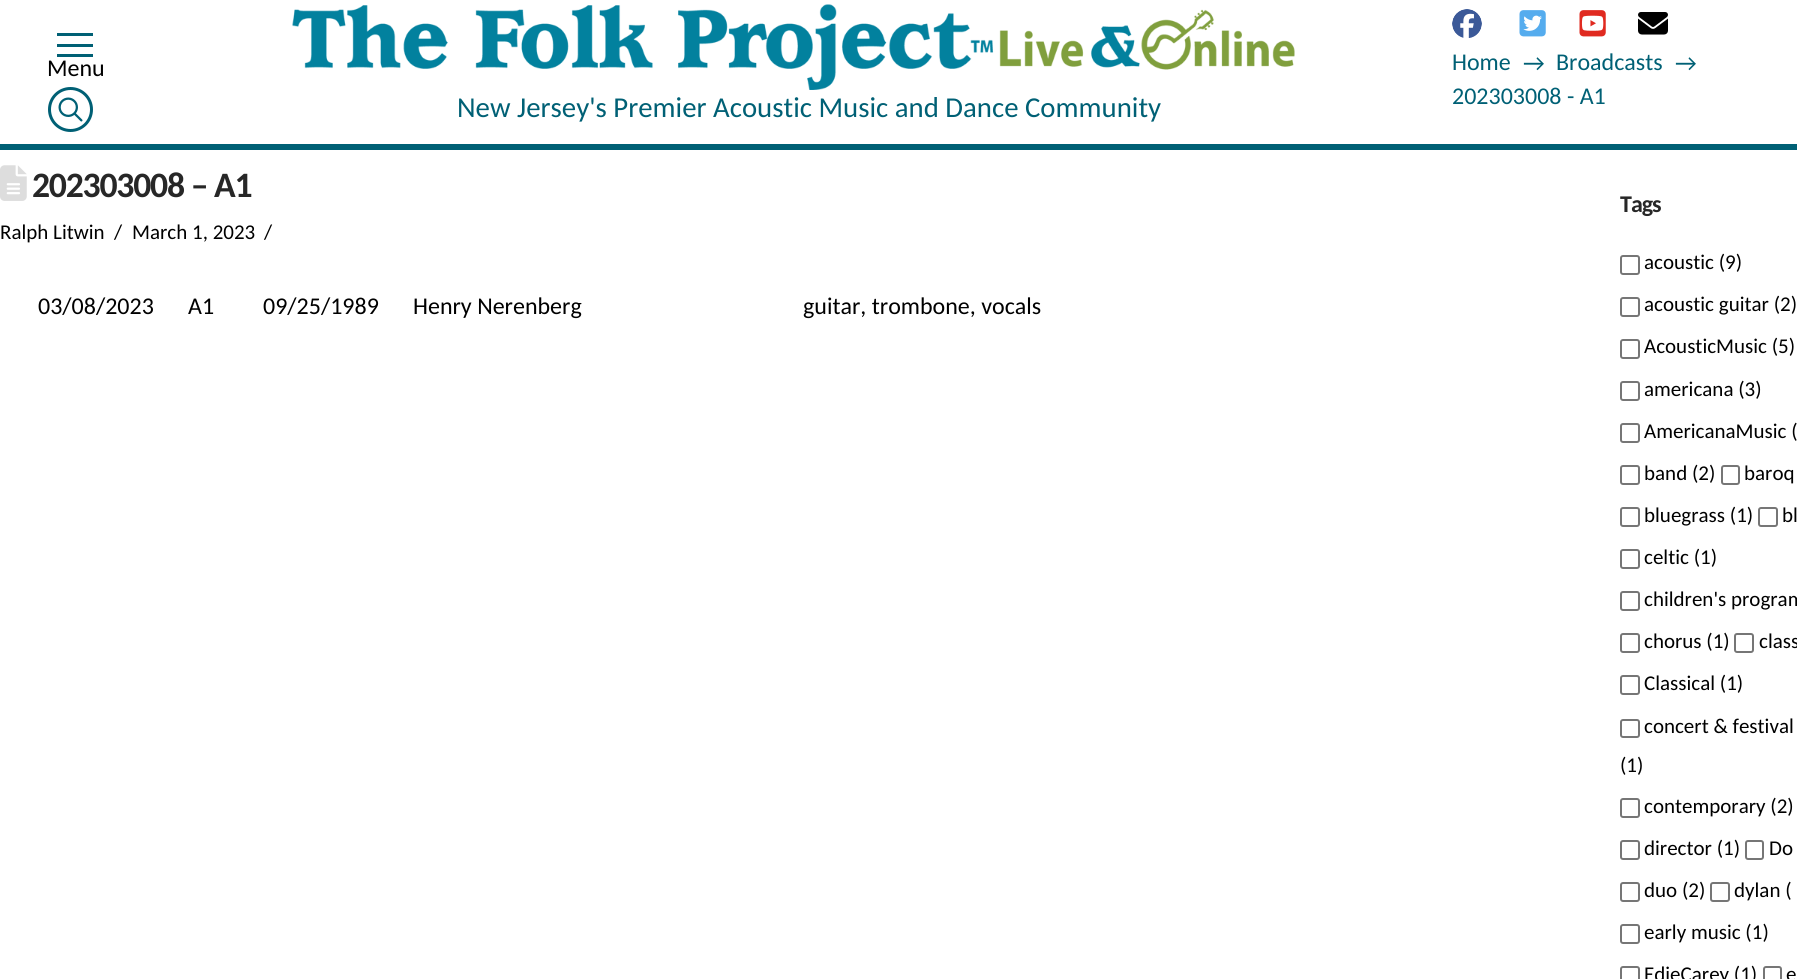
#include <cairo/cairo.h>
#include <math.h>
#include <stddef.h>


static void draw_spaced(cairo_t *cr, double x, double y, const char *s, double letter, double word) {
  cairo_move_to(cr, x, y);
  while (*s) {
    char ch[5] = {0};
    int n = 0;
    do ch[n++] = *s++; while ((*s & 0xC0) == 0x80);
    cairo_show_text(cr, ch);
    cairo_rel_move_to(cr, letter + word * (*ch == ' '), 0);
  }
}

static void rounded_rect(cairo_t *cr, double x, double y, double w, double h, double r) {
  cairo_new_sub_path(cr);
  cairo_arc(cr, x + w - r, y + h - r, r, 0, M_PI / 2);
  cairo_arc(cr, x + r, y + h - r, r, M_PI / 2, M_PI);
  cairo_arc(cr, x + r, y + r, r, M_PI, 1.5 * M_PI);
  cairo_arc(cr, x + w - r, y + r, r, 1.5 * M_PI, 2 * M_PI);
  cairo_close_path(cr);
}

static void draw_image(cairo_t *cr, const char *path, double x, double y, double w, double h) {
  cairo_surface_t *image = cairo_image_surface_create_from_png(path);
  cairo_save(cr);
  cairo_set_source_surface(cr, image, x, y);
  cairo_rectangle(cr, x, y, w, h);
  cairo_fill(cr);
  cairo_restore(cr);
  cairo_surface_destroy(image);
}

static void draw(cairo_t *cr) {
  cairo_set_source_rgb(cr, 1, 1, 1);
  cairo_paint(cr);
  cairo_set_source_rgb(cr, 0, 96 / 255.0, 117 / 255.0);
  cairo_rectangle(cr, 0, 144, 1797, 6);
  cairo_fill(cr);
  cairo_rectangle(cr, 57, 33, 36, 3);
  cairo_fill(cr);
  cairo_rectangle(cr, 57, 44, 36, 3);
  cairo_fill(cr);
  cairo_rectangle(cr, 57, 54, 36, 3);
  cairo_fill(cr);
  cairo_arc(cr, 70.5, 109.5, 21, 0, 2 * M_PI);
  cairo_set_line_width(cr, 3);
  cairo_stroke(cr);
  draw_image(cr, "images/1.png", 58, 97, 25, 25);
  draw_image(cr, "images/2.png", 1452, 9, 30, 29);
  draw_image(cr, "images/3.png", 1519, 10, 27, 27);
  draw_image(cr, "images/4.png", 1579, 10, 27, 27);
  draw_image(cr, "images/5.png", 1638, 12, 30, 23);
  draw_image(cr, "images/6.png", 292, 4, 1003, 86);
  draw_image(cr, "images/7.png", 0, 165, 27, 36);
  rounded_rect(cr, 1621, 256, 18, 18, 2);
  cairo_set_source_rgb(cr, 118 / 255.0, 118 / 255.0, 118 / 255.0);
  cairo_set_line_width(cr, 2);
  cairo_stroke(cr);
  rounded_rect(cr, 1621, 298, 18, 18, 2);
  cairo_stroke(cr);
  rounded_rect(cr, 1621, 340, 18, 18, 2);
  cairo_stroke(cr);
  rounded_rect(cr, 1621, 382, 18, 18, 2);
  cairo_stroke(cr);
  rounded_rect(cr, 1621, 424, 18, 18, 2);
  cairo_stroke(cr);
  rounded_rect(cr, 1621, 466, 18, 18, 2);
  cairo_stroke(cr);
  rounded_rect(cr, 1722, 466, 17, 18, 2);
  cairo_stroke(cr);
  rounded_rect(cr, 1621, 508, 18, 18, 2);
  cairo_stroke(cr);
  rounded_rect(cr, 1759, 508, 18, 18, 2);
  cairo_stroke(cr);
  rounded_rect(cr, 1621, 550, 18, 18, 2);
  cairo_stroke(cr);
  rounded_rect(cr, 1621, 592, 18, 18, 2);
  cairo_stroke(cr);
  rounded_rect(cr, 1621, 634, 18, 18, 2);
  cairo_stroke(cr);
  rounded_rect(cr, 1735, 634, 18, 18, 2);
  cairo_stroke(cr);
  rounded_rect(cr, 1621, 676, 18, 18, 2);
  cairo_stroke(cr);
  rounded_rect(cr, 1621, 720, 18, 17, 2);
  cairo_stroke(cr);
  rounded_rect(cr, 1621, 799, 18, 18, 2);
  cairo_stroke(cr);
  rounded_rect(cr, 1621, 841, 18, 18, 2);
  cairo_stroke(cr);
  rounded_rect(cr, 1746, 841, 17, 18, 2);
  cairo_stroke(cr);
  rounded_rect(cr, 1621, 883, 18, 18, 2);
  cairo_stroke(cr);
  rounded_rect(cr, 1711, 883, 18, 18, 2);
  cairo_stroke(cr);
  rounded_rect(cr, 1621, 925, 18, 18, 2);
  cairo_stroke(cr);
  rounded_rect(cr, 1621, 967, 18, 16, 2);
  cairo_stroke(cr);
  rounded_rect(cr, 1764, 967, 17, 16, 2);
  cairo_stroke(cr);
  cairo_select_font_face(cr, "Carlito", CAIRO_FONT_SLANT_NORMAL, CAIRO_FONT_WEIGHT_NORMAL);
  cairo_set_font_size(cr, 24);
  cairo_set_source_rgb(cr, 0, 0, 0);
  cairo_move_to(cr, 47, 76);
  cairo_show_text(cr, "Menu");
  cairo_set_source_rgb(cr, 0, 96 / 255.0, 117 / 255.0);
  cairo_move_to(cr, 1452, 70);
  cairo_show_text(cr, "Home");
  cairo_move_to(cr, 1523, 71);
  cairo_show_text(cr, "→");
  cairo_move_to(cr, 1556, 70);
  cairo_show_text(cr, "Broadcasts");
  cairo_move_to(cr, 1675, 71);
  cairo_show_text(cr, "→");
  cairo_move_to(cr, 1452, 104);
  cairo_show_text(cr, "202303008 - A1");
  cairo_set_font_size(cr, 28.8);
  cairo_move_to(cr, 457, 117);
  cairo_show_text(cr, "New Jersey's Premier Acoustic Music and Dance Community");
  cairo_select_font_face(cr, "Carlito", CAIRO_FONT_SLANT_NORMAL, CAIRO_FONT_WEIGHT_BOLD);
  cairo_set_font_size(cr, 35.75);
  cairo_set_source_rgb(cr, 39 / 255.0, 39 / 255.0, 39 / 255.0);
  draw_spaced(cr, 32, 197, "202303008 – A1", -1.25, 0);
  cairo_select_font_face(cr, "Carlito", CAIRO_FONT_SLANT_NORMAL, CAIRO_FONT_WEIGHT_NORMAL);
  cairo_set_font_size(cr, 21);
  cairo_set_source_rgb(cr, 0, 0, 0);
  cairo_move_to(cr, 0, 239);
  cairo_show_text(cr, "Ralph Litwin");
  cairo_move_to(cr, 114, 239);
  cairo_show_text(cr, "/");
  cairo_move_to(cr, 132, 239);
  cairo_show_text(cr, "March 1, 2023");
  cairo_move_to(cr, 264, 239);
  cairo_show_text(cr, "/");
  cairo_set_font_size(cr, 24);
  cairo_move_to(cr, 38, 314);
  cairo_show_text(cr, "03/08/2023");
  cairo_move_to(cr, 188, 314);
  cairo_show_text(cr, "A1");
  cairo_move_to(cr, 263, 314);
  cairo_show_text(cr, "09/25/1989");
  cairo_move_to(cr, 413, 314);
  cairo_show_text(cr, "Henry Nerenberg");
  cairo_move_to(cr, 803, 314);
  cairo_show_text(cr, "guitar, trombone, vocals");
  cairo_select_font_face(cr, "Carlito", CAIRO_FONT_SLANT_NORMAL, CAIRO_FONT_WEIGHT_BOLD);
  cairo_set_source_rgb(cr, 39 / 255.0, 39 / 255.0, 39 / 255.0);
  draw_spaced(cr, 1620, 212, "Tags", -1, 0);
  cairo_select_font_face(cr, "Carlito", CAIRO_FONT_SLANT_NORMAL, CAIRO_FONT_WEIGHT_NORMAL);
  cairo_set_font_size(cr, 21);
  cairo_set_source_rgb(cr, 0, 0, 0);
  cairo_move_to(cr, 1644, 269);
  cairo_show_text(cr, "acoustic (9)");
  cairo_move_to(cr, 1644, 311);
  cairo_show_text(cr, "acoustic guitar (2)");
  cairo_move_to(cr, 1644, 353);
  cairo_show_text(cr, "AcousticMusic (5)");
  cairo_move_to(cr, 1644, 396);
  cairo_show_text(cr, "americana (3)");
  cairo_move_to(cr, 1644, 438);
  cairo_show_text(cr, "AmericanaMusic (");
  cairo_move_to(cr, 1644, 480);
  cairo_show_text(cr, "band (2)");
  cairo_move_to(cr, 1744, 480);
  cairo_show_text(cr, "baroq");
  cairo_move_to(cr, 1644, 522);
  cairo_show_text(cr, "bluegrass (1)");
  cairo_move_to(cr, 1782, 522);
  cairo_show_text(cr, "bl");
  cairo_move_to(cr, 1644, 564);
  cairo_show_text(cr, "celtic (1)");
  cairo_move_to(cr, 1644, 606);
  cairo_show_text(cr, "children's program");
  cairo_move_to(cr, 1644, 648);
  cairo_show_text(cr, "chorus (1)");
  cairo_move_to(cr, 1759, 648);
  cairo_show_text(cr, "class");
  cairo_move_to(cr, 1644, 690);
  cairo_show_text(cr, "Classical (1)");
  cairo_move_to(cr, 1644, 733);
  cairo_show_text(cr, "concert & festival");
  cairo_move_to(cr, 1620, 772);
  cairo_show_text(cr, "(1)");
  cairo_move_to(cr, 1644, 813);
  cairo_show_text(cr, "contemporary (2)");
  cairo_move_to(cr, 1644, 855);
  cairo_show_text(cr, "director (1)");
  cairo_move_to(cr, 1769, 855);
  cairo_show_text(cr, "Do");
  cairo_move_to(cr, 1644, 897);
  cairo_show_text(cr, "duo (2)");
  cairo_move_to(cr, 1734, 897);
  cairo_show_text(cr, "dylan (");
  cairo_move_to(cr, 1644, 939);
  cairo_show_text(cr, "early music (1)");
  cairo_move_to(cr, 1644, 981);
  cairo_show_text(cr, "EdieCarey (1)");
  cairo_move_to(cr, 1786, 981);
  cairo_show_text(cr, "e");
}

int main(void) {
  cairo_surface_t *surface = cairo_image_surface_create(CAIRO_FORMAT_RGB24, 1797, 979);
  cairo_t *cr = cairo_create(surface);
  cairo_font_options_t *options = cairo_font_options_create();
  cairo_font_options_set_hint_metrics(options, CAIRO_HINT_METRICS_OFF);
  cairo_font_options_set_hint_style(options, CAIRO_HINT_STYLE_NONE);
  cairo_set_font_options(cr, options);
  cairo_set_miter_limit(cr, 4);
  draw(cr);
  cairo_surface_write_to_png(surface, "out.png");
  cairo_font_options_destroy(options);
  cairo_destroy(cr);
  cairo_surface_destroy(surface);
  return 0;
}
